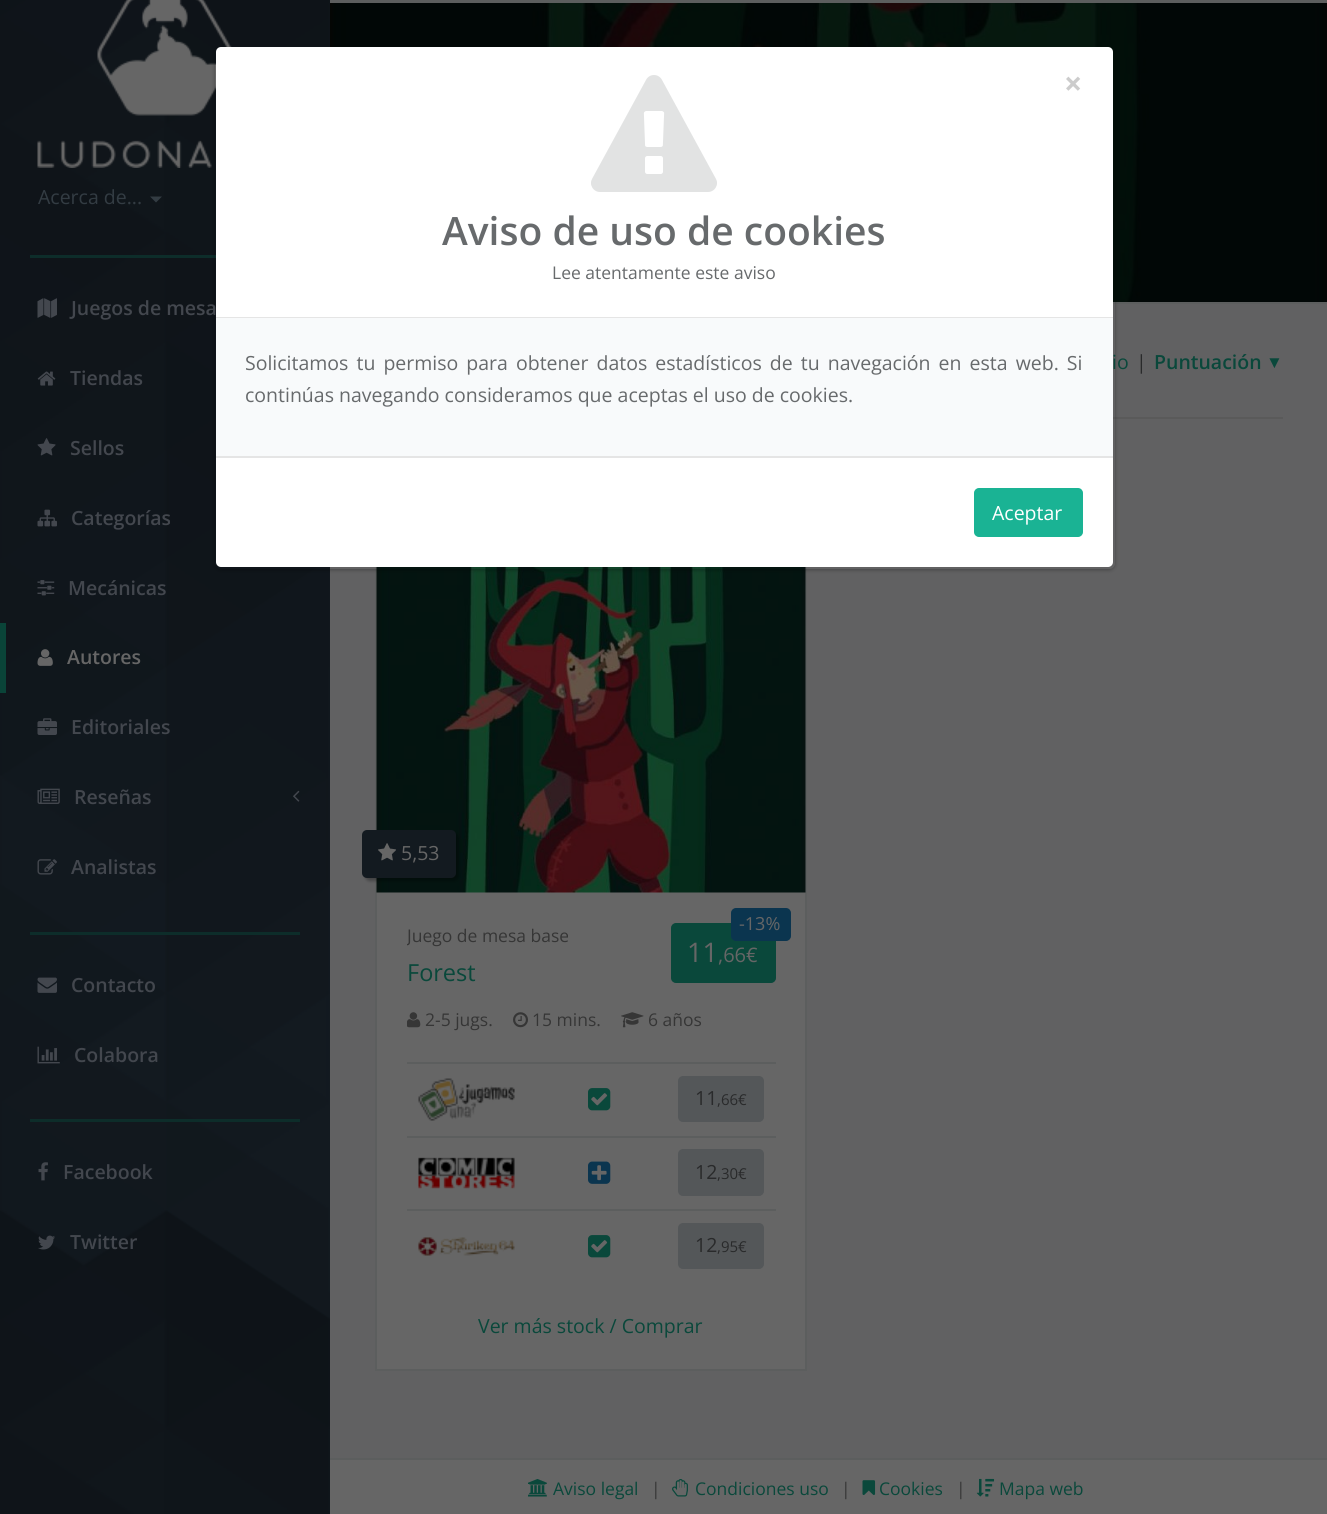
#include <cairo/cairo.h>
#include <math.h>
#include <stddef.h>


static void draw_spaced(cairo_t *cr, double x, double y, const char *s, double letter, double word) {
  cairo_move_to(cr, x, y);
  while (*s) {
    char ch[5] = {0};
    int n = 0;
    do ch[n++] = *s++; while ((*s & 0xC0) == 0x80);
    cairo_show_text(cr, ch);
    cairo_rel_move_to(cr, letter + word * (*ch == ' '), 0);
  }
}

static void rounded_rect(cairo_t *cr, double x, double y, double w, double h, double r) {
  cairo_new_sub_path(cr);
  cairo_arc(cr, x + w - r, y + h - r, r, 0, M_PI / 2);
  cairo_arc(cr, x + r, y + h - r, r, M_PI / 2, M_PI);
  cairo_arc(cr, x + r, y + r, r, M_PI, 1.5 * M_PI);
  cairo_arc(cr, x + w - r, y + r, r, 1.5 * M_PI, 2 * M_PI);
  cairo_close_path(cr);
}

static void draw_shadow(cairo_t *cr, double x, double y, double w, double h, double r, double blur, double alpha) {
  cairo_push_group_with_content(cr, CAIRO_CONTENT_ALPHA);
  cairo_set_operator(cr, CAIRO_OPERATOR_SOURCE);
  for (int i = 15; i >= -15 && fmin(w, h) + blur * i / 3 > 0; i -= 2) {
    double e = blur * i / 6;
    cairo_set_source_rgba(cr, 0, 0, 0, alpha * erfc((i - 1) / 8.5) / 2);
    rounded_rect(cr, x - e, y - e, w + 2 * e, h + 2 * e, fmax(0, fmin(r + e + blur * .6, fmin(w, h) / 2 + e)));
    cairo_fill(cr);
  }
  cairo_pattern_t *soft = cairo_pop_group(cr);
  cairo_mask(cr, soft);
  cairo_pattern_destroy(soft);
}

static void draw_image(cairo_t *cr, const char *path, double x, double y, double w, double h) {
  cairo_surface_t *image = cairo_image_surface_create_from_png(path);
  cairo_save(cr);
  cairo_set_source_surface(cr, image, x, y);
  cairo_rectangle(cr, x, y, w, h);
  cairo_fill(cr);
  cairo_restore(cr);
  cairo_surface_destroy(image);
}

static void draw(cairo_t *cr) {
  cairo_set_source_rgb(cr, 1, 1, 1);
  cairo_paint(cr);
  draw_image(cr, "images/1.png", 0, 0, 330, 1514);
  draw_image(cr, "images/3.png", 37, 0, 195, 168);
  cairo_set_source_rgb(cr, 13 / 255.0, 45 / 255.0, 42 / 255.0);
  cairo_rectangle(cr, 30, 255, 186, 3);
  cairo_fill(cr);
  cairo_set_source_rgb(cr, 97 / 255.0, 97 / 255.0, 98 / 255.0);
  cairo_rectangle(cr, 330, 304, 997, 1154);
  cairo_fill(cr);
  draw_image(cr, "images/18.png", 330, 3, 997, 299);
  cairo_set_source_rgb(cr, 92 / 255.0, 94 / 255.0, 94 / 255.0);
  cairo_rectangle(cr, 1113, 302, 214, 2);
  cairo_fill(cr);
  cairo_set_source_rgb(cr, 90 / 255.0, 90 / 255.0, 90 / 255.0);
  cairo_rectangle(cr, 1113, 417, 170, 2);
  cairo_fill(cr);
  cairo_set_source_rgb(cr, 102 / 255.0, 102 / 255.0, 102 / 255.0);
  cairo_rectangle(cr, 377, 892, 428, 477);
  cairo_fill(cr);
  cairo_rectangle(cr, 376, 465, 430, 905);
  cairo_set_source_rgb(cr, 92 / 255.0, 94 / 255.0, 94 / 255.0);
  cairo_stroke(cr);
  draw_image(cr, "images/19.png", 376, 567, 430, 326);
  cairo_save(cr);
  cairo_set_fill_rule(cr, CAIRO_FILL_RULE_EVEN_ODD);
  cairo_new_path(cr);
  cairo_move_to(cr, 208, 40);
  cairo_line_to(cr, 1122, 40);
  cairo_line_to(cr, 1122, 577);
  cairo_line_to(cr, 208, 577);
  cairo_close_path(cr);
  cairo_move_to(cr, 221, 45);
  cairo_line_to(cr, 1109, 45);
  cairo_curve_to(cr, 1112.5, 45, 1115, 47.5, 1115, 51);
  cairo_line_to(cr, 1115, 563);
  cairo_curve_to(cr, 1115, 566.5, 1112.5, 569, 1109, 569);
  cairo_line_to(cr, 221, 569);
  cairo_curve_to(cr, 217.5, 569, 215, 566.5, 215, 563);
  cairo_line_to(cr, 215, 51);
  cairo_curve_to(cr, 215, 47.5, 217.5, 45, 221, 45);
  cairo_close_path(cr);
  cairo_clip(cr);
  cairo_set_source_rgb(cr, 0, 0, 0);
  draw_shadow(cr, 215, 47, 900, 523, 6, 2, 0.3);
  cairo_restore(cr);
  cairo_set_source_rgb(cr, 1, 1, 1);
  rounded_rect(cr, 216, 47, 897, 520, 5);
  cairo_fill(cr);
  cairo_set_source_rgb(cr, 229 / 255.0, 229 / 255.0, 229 / 255.0);
  cairo_rectangle(cr, 216, 317, 897, 1);
  cairo_fill(cr);
  draw_image(cr, "images/2.png", 591, 75, 126, 117);
  cairo_set_source_rgb(cr, 248 / 255.0, 250 / 255.0, 251 / 255.0);
  cairo_rectangle(cr, 216, 318, 897, 138);
  cairo_fill(cr);
  cairo_set_source_rgb(cr, 229 / 255.0, 229 / 255.0, 229 / 255.0);
  cairo_rectangle(cr, 216, 456, 897, 2);
  cairo_fill(cr);
  cairo_set_source_rgb(cr, 26 / 255.0, 179 / 255.0, 148 / 255.0);
  rounded_rect(cr, 975, 489, 107, 47, 4);
  cairo_fill_preserve(cr);
  cairo_stroke(cr);
  cairo_set_source_rgb(cr, 51 / 255.0, 60 / 255.0, 67 / 255.0);
  cairo_new_path(cr);
  cairo_move_to(cr, 150, 196.5);
  cairo_line_to(cr, 162, 196.5);
  cairo_line_to(cr, 156, 202.5);
  cairo_close_path(cr);
  cairo_fill(cr);
  draw_image(cr, "images/4.png", 37, 298, 20, 20);
  draw_image(cr, "images/5.png", 37, 371, 19, 15);
  draw_image(cr, "images/6.png", 37, 438, 19, 18);
  draw_image(cr, "images/7.png", 37, 509, 20, 18);
  draw_image(cr, "images/8.png", 37, 580, 18, 16);
  cairo_set_source_rgb(cr, 10 / 255.0, 68 / 255.0, 56 / 255.0);
  cairo_rectangle(cr, 0, 623, 6, 70);
  cairo_fill(cr);
  draw_image(cr, "images/9.png", 37, 649, 16, 17);
  draw_image(cr, "images/10.png", 37, 718, 20, 17);
  draw_image(cr, "images/11.png", 37, 788, 23, 16);
  draw_image(cr, "images/12.png", 293, 790, 7, 12);
  draw_image(cr, "images/13.png", 37, 859, 20, 16);
  cairo_set_source_rgb(cr, 13 / 255.0, 45 / 255.0, 42 / 255.0);
  cairo_rectangle(cr, 30, 932, 270, 3);
  cairo_fill(cr);
  draw_image(cr, "images/14.png", 37, 977, 20, 16);
  draw_image(cr, "images/15.png", 37, 1046, 23, 18);
  cairo_rectangle(cr, 30, 1119, 270, 3);
  cairo_fill(cr);
  draw_image(cr, "images/16.png", 38, 1162, 10, 19);
  draw_image(cr, "images/17.png", 38, 1235, 17, 15);
  cairo_set_source_rgb(cr, 92 / 255.0, 94 / 255.0, 94 / 255.0);
  cairo_rectangle(cr, 330, 0, 997, 3);
  cairo_fill(cr);
  cairo_set_source_rgb(cr, 0, 0, 0);
  draw_shadow(cr, 365, 833, 94, 48, 5, 1.5, 0.3);
  cairo_set_source_rgb(cr, 19 / 255.0, 26 / 255.0, 32 / 255.0);
  rounded_rect(cr, 362, 830, 94, 48, 5);
  cairo_fill(cr);
  draw_image(cr, "images/20.png", 378, 843, 19, 18);
  cairo_set_source_rgb(cr, 10 / 255.0, 72 / 255.0, 59 / 255.0);
  rounded_rect(cr, 672, 924, 103, 58, 4);
  cairo_fill_preserve(cr);
  cairo_stroke(cr);
  cairo_set_source_rgb(cr, 11 / 255.0, 53 / 255.0, 79 / 255.0);
  rounded_rect(cr, 732, 909, 58, 31, 4);
  cairo_fill_preserve(cr);
  cairo_stroke(cr);
  draw_image(cr, "images/21.png", 407, 1012, 14, 16);
  draw_image(cr, "images/22.png", 513, 1012, 15, 16);
  draw_image(cr, "images/23.png", 621, 1012, 23, 16);
  draw_image(cr, "images/24.png", 418, 1078, 97, 43);
  draw_image(cr, "images/25.png", 588, 1088, 23, 23);
  cairo_set_source_rgb(cr, 92 / 255.0, 94 / 255.0, 94 / 255.0);
  cairo_rectangle(cr, 407, 1062, 369, 2);
  cairo_fill(cr);
  cairo_set_source_rgb(cr, 84 / 255.0, 87 / 255.0, 89 / 255.0);
  rounded_rect(cr, 679, 1077, 84, 44, 4);
  cairo_fill_preserve(cr);
  cairo_stroke(cr);
  draw_image(cr, "images/26.png", 418, 1157, 97, 32);
  draw_image(cr, "images/27.png", 588, 1161, 23, 23);
  cairo_set_source_rgb(cr, 92 / 255.0, 94 / 255.0, 94 / 255.0);
  cairo_rectangle(cr, 407, 1136, 369, 2);
  cairo_fill(cr);
  cairo_set_source_rgb(cr, 84 / 255.0, 87 / 255.0, 89 / 255.0);
  rounded_rect(cr, 679, 1150, 84, 45, 4);
  cairo_fill_preserve(cr);
  cairo_stroke(cr);
  draw_image(cr, "images/28.png", 418, 1237, 97, 19);
  draw_image(cr, "images/25.png", 588, 1235, 23, 23);
  cairo_set_source_rgb(cr, 92 / 255.0, 94 / 255.0, 94 / 255.0);
  cairo_rectangle(cr, 407, 1209, 369, 2);
  cairo_fill(cr);
  cairo_set_source_rgb(cr, 84 / 255.0, 87 / 255.0, 89 / 255.0);
  rounded_rect(cr, 679, 1224, 84, 44, 4);
  cairo_fill_preserve(cr);
  cairo_stroke(cr);
  cairo_set_source_rgb(cr, 102 / 255.0, 102 / 255.0, 102 / 255.0);
  cairo_rectangle(cr, 330, 1460, 997, 54);
  cairo_fill(cr);
  cairo_set_source_rgb(cr, 92 / 255.0, 94 / 255.0, 94 / 255.0);
  cairo_rectangle(cr, 330, 1458, 997, 2);
  cairo_fill(cr);
  draw_image(cr, "images/29.png", 528, 1479, 19, 18);
  draw_image(cr, "images/30.png", 672, 1479, 16, 18);
  draw_image(cr, "images/31.png", 862, 1480, 14, 15);
  draw_image(cr, "images/32.png", 976, 1478, 19, 19);
  cairo_select_font_face(cr, "Open Sans", CAIRO_FONT_SLANT_NORMAL, CAIRO_FONT_WEIGHT_BOLD);
  cairo_set_font_size(cr, 32);
  cairo_set_source_rgb(cr, 204 / 255.0, 204 / 255.0, 204 / 255.0);
  cairo_move_to(cr, 1064, 95);
  cairo_show_text(cr, "×");
  cairo_select_font_face(cr, "Open Sans SemiBold", CAIRO_FONT_SLANT_NORMAL, CAIRO_FONT_WEIGHT_NORMAL);
  cairo_set_font_size(cr, 39);
  cairo_set_source_rgb(cr, 103 / 255.0, 106 / 255.0, 108 / 255.0);
  cairo_move_to(cr, 442, 245);
  cairo_show_text(cr, "Aviso de uso de cookies");
  cairo_select_font_face(cr, "Open Sans", CAIRO_FONT_SLANT_NORMAL, CAIRO_FONT_WEIGHT_NORMAL);
  cairo_set_font_size(cr, 17.5);
  cairo_move_to(cr, 552, 279);
  cairo_show_text(cr, "Lee atentamente este aviso");
  cairo_set_font_size(cr, 19.5);
  draw_spaced(cr, 245, 370, "Solicitamos tu permiso para obtener datos estadísticos de tu navegación en esta web. Si", 0, 3);
  cairo_move_to(cr, 245, 402);
  cairo_show_text(cr, "continúas navegando consideramos que aceptas el uso de cookies.");
  cairo_set_source_rgb(cr, 1, 1, 1);
  cairo_move_to(cr, 992, 520);
  cairo_show_text(cr, "Aceptar");
  cairo_set_source_rgb(cr, 51 / 255.0, 60 / 255.0, 67 / 255.0);
  cairo_move_to(cr, 38, 204);
  cairo_show_text(cr, "Acerca de...");
  cairo_select_font_face(cr, "Open Sans SemiBold", CAIRO_FONT_SLANT_NORMAL, CAIRO_FONT_WEIGHT_NORMAL);
  cairo_set_source_rgb(cr, 67 / 255.0, 71 / 255.0, 78 / 255.0);
  cairo_move_to(cr, 71, 315);
  cairo_show_text(cr, "Juegos de mesa");
  cairo_move_to(cr, 70, 385);
  cairo_show_text(cr, "Tiendas");
  cairo_move_to(cr, 70, 455);
  cairo_show_text(cr, "Sellos");
  cairo_move_to(cr, 71, 525);
  cairo_show_text(cr, "Categorías");
  cairo_move_to(cr, 68, 595);
  cairo_show_text(cr, "Mecánicas");
  cairo_set_source_rgb(cr, 102 / 255.0, 102 / 255.0, 102 / 255.0);
  cairo_move_to(cr, 67, 664);
  cairo_show_text(cr, "Autores");
  cairo_set_source_rgb(cr, 67 / 255.0, 71 / 255.0, 78 / 255.0);
  cairo_move_to(cr, 71, 734);
  cairo_show_text(cr, "Editoriales");
  cairo_move_to(cr, 74, 804);
  cairo_show_text(cr, "Reseñas");
  cairo_move_to(cr, 71, 874);
  cairo_show_text(cr, "Analistas");
  cairo_move_to(cr, 71, 992);
  cairo_show_text(cr, "Contacto");
  cairo_move_to(cr, 74, 1062);
  cairo_show_text(cr, "Colabora");
  cairo_move_to(cr, 63, 1179);
  cairo_show_text(cr, "Facebook");
  cairo_move_to(cr, 70, 1249);
  cairo_show_text(cr, "Twitter");
  cairo_select_font_face(cr, "Open Sans", CAIRO_FONT_SLANT_NORMAL, CAIRO_FONT_WEIGHT_NORMAL);
  cairo_set_source_rgb(cr, 10 / 255.0, 72 / 255.0, 59 / 255.0);
  cairo_move_to(cr, 1112, 369);
  cairo_show_text(cr, "io");
  cairo_set_source_rgb(cr, 41 / 255.0, 42 / 255.0, 43 / 255.0);
  cairo_move_to(cr, 1136, 369);
  cairo_show_text(cr, "|");
  cairo_select_font_face(cr, "Open Sans SemiBold", CAIRO_FONT_SLANT_NORMAL, CAIRO_FONT_WEIGHT_NORMAL);
  cairo_set_source_rgb(cr, 10 / 255.0, 72 / 255.0, 59 / 255.0);
  cairo_move_to(cr, 1154, 369);
  cairo_show_text(cr, "Puntuación");
  cairo_select_font_face(cr, "Liberation Sans", CAIRO_FONT_SLANT_NORMAL, CAIRO_FONT_WEIGHT_BOLD);
  cairo_set_font_size(cr, 17);
  cairo_move_to(cr, 1266, 368);
  cairo_show_text(cr, "▼");
  cairo_select_font_face(cr, "Open Sans", CAIRO_FONT_SLANT_NORMAL, CAIRO_FONT_WEIGHT_NORMAL);
  cairo_set_font_size(cr, 19.5);
  cairo_set_source_rgb(cr, 102 / 255.0, 102 / 255.0, 102 / 255.0);
  cairo_move_to(cr, 401, 860);
  cairo_show_text(cr, "5,53");
  cairo_save(cr);
  cairo_rectangle(cr, 407, 923, 249, 25);
  cairo_clip(cr);
  cairo_set_font_size(cr, 17.5);
  cairo_set_source_rgb(cr, 54 / 255.0, 54 / 255.0, 54 / 255.0);
  cairo_move_to(cr, 407, 942);
  cairo_show_text(cr, "Juego de mesa base");
  cairo_restore(cr);
  cairo_set_font_size(cr, 18);
  cairo_move_to(cr, 739, 930);
  cairo_show_text(cr, "-13%");
  cairo_set_font_size(cr, 27);
  cairo_move_to(cr, 687, 962);
  cairo_show_text(cr, "11");
  cairo_set_font_size(cr, 20);
  cairo_move_to(cr, 718, 962);
  cairo_show_text(cr, ",66€");
  cairo_set_font_size(cr, 23.5);
  cairo_set_source_rgb(cr, 10 / 255.0, 72 / 255.0, 59 / 255.0);
  cairo_move_to(cr, 407, 981);
  cairo_show_text(cr, "Forest");
  cairo_set_font_size(cr, 17.5);
  cairo_set_source_rgb(cr, 54 / 255.0, 54 / 255.0, 54 / 255.0);
  cairo_move_to(cr, 425, 1026);
  cairo_show_text(cr, "2-5 jugs.");
  cairo_move_to(cr, 532, 1026);
  cairo_show_text(cr, "15 mins.");
  cairo_move_to(cr, 648, 1026);
  cairo_show_text(cr, "6 años");
  cairo_set_font_size(cr, 19.5);
  cairo_set_source_rgb(cr, 41 / 255.0, 42 / 255.0, 43 / 255.0);
  cairo_move_to(cr, 695, 1105);
  cairo_show_text(cr, "11");
  cairo_set_font_size(cr, 15);
  cairo_move_to(cr, 717, 1105);
  cairo_show_text(cr, ",66€");
  cairo_set_font_size(cr, 19.5);
  cairo_move_to(cr, 695, 1179);
  cairo_show_text(cr, "12");
  cairo_set_font_size(cr, 15);
  cairo_move_to(cr, 717, 1179);
  cairo_show_text(cr, ",30€");
  cairo_set_font_size(cr, 19.5);
  cairo_move_to(cr, 695, 1252);
  cairo_show_text(cr, "12");
  cairo_set_font_size(cr, 15);
  cairo_move_to(cr, 717, 1252);
  cairo_show_text(cr, ",95€");
  cairo_set_font_size(cr, 19.5);
  cairo_set_source_rgb(cr, 10 / 255.0, 72 / 255.0, 59 / 255.0);
  cairo_move_to(cr, 478, 1333);
  cairo_show_text(cr, "Ver más stock / Comprar");
  cairo_set_font_size(cr, 17.5);
  cairo_move_to(cr, 553, 1495);
  cairo_show_text(cr, "Aviso legal");
  cairo_set_source_rgb(cr, 54 / 255.0, 54 / 255.0, 54 / 255.0);
  cairo_move_to(cr, 651, 1495);
  cairo_show_text(cr, "|");
  cairo_set_source_rgb(cr, 10 / 255.0, 72 / 255.0, 59 / 255.0);
  cairo_move_to(cr, 695, 1495);
  cairo_show_text(cr, "Condiciones uso");
  cairo_set_source_rgb(cr, 54 / 255.0, 54 / 255.0, 54 / 255.0);
  cairo_move_to(cr, 841, 1495);
  cairo_show_text(cr, "|");
  cairo_set_source_rgb(cr, 10 / 255.0, 72 / 255.0, 59 / 255.0);
  cairo_move_to(cr, 879, 1495);
  cairo_show_text(cr, "Cookies");
  cairo_set_source_rgb(cr, 54 / 255.0, 54 / 255.0, 54 / 255.0);
  cairo_move_to(cr, 956, 1495);
  cairo_show_text(cr, "|");
  cairo_set_source_rgb(cr, 10 / 255.0, 72 / 255.0, 59 / 255.0);
  cairo_move_to(cr, 999, 1495);
  cairo_show_text(cr, "Mapa web");
}

int main(void) {
  cairo_surface_t *surface = cairo_image_surface_create(CAIRO_FORMAT_RGB24, 1327, 1514);
  cairo_t *cr = cairo_create(surface);
  cairo_font_options_t *options = cairo_font_options_create();
  cairo_font_options_set_hint_metrics(options, CAIRO_HINT_METRICS_OFF);
  cairo_font_options_set_hint_style(options, CAIRO_HINT_STYLE_NONE);
  cairo_set_font_options(cr, options);
  cairo_set_miter_limit(cr, 4);
  draw(cr);
  cairo_surface_write_to_png(surface, "out.png");
  cairo_font_options_destroy(options);
  cairo_destroy(cr);
  cairo_surface_destroy(surface);
  return 0;
}
